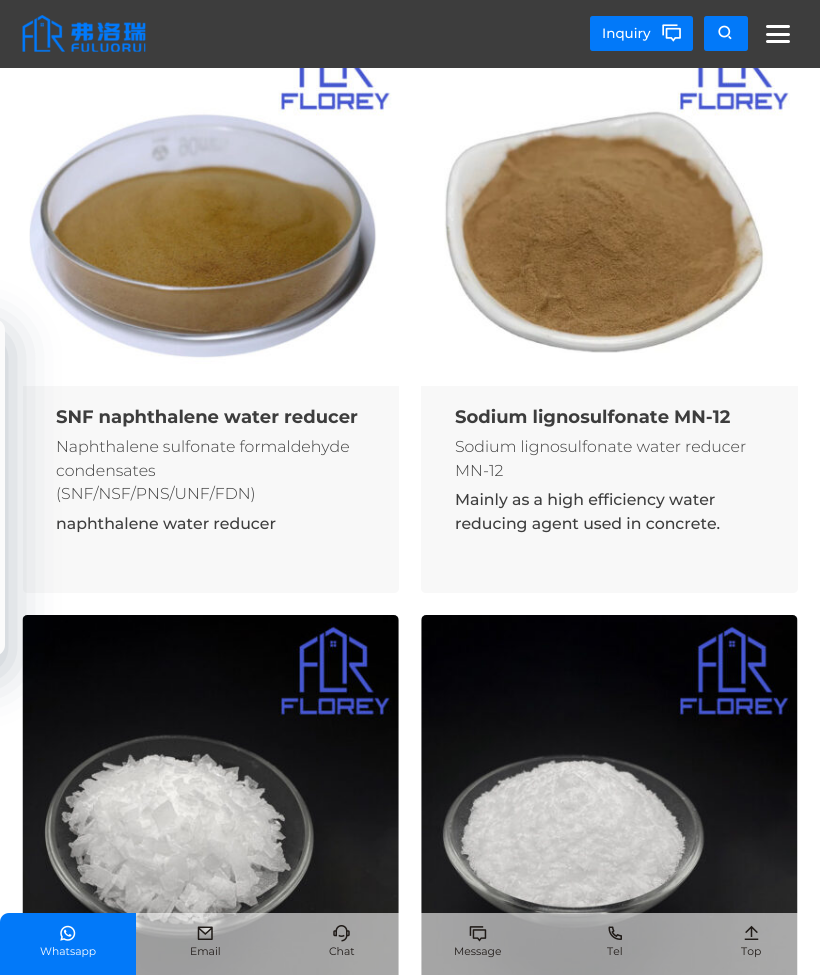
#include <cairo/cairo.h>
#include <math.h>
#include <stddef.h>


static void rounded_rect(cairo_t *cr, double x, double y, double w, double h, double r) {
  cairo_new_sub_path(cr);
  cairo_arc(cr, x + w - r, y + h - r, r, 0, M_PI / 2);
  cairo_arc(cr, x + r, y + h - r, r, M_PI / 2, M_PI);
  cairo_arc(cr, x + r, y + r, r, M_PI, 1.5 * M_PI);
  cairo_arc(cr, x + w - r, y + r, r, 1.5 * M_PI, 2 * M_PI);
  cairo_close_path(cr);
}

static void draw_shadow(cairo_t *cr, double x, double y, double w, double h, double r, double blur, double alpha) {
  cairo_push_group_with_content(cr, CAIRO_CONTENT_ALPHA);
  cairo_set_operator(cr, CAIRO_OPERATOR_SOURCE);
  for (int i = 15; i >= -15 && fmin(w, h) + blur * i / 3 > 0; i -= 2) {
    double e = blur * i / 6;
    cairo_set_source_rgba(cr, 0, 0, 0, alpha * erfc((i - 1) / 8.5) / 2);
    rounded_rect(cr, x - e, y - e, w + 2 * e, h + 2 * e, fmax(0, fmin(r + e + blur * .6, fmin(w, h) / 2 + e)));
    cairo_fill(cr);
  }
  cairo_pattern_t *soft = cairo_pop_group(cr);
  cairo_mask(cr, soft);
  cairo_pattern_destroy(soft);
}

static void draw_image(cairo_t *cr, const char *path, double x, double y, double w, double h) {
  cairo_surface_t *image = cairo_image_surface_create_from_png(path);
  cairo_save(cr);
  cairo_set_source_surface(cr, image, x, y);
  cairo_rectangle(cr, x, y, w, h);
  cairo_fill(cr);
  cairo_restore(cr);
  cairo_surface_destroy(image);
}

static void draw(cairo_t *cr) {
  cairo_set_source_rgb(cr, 1, 1, 1);
  cairo_paint(cr);
  cairo_set_source_rgb(cr, 61 / 255.0, 61 / 255.0, 61 / 255.0);
  cairo_rectangle(cr, 0, 0, 820, 68);
  cairo_fill(cr);
  draw_image(cr, "images/1.png", 22, 15, 124, 37);
  cairo_set_source_rgb(cr, 2 / 255.0, 121 / 255.0, 249 / 255.0);
  rounded_rect(cr, 590, 16, 103, 35, 2.5);
  cairo_fill(cr);
  draw_image(cr, "images/2.png", 662, 24, 19, 18);
  rounded_rect(cr, 704, 16, 44, 35, 2.5);
  cairo_fill(cr);
  draw_image(cr, "images/3.png", 718, 25, 14, 15);
  cairo_set_source_rgb(cr, 1, 1, 1);
  rounded_rect(cr, 766, 25, 24, 3, 1.5);
  cairo_fill(cr);
  rounded_rect(cr, 766, 33, 24, 3, 1.5);
  cairo_fill(cr);
  rounded_rect(cr, 766, 40, 24, 3, 1.5);
  cairo_fill(cr);
  draw_image(cr, "images/4.png", 29, 68, 363, 296);
  cairo_set_source_rgb(cr, 248 / 255.0, 248 / 255.0, 248 / 255.0);
  cairo_new_path(cr);
  cairo_move_to(cr, 23, 386);
  cairo_line_to(cr, 399, 386);
  cairo_line_to(cr, 399, 588);
  cairo_curve_to(cr, 399, 591, 397, 593, 394, 593);
  cairo_line_to(cr, 28, 593);
  cairo_curve_to(cr, 25, 593, 23, 591, 23, 588);
  cairo_close_path(cr);
  cairo_fill(cr);
  draw_image(cr, "images/6.png", 22, 615, 377, 360);
  cairo_set_source_rgb(cr, 0, 26 / 255.0, 55 / 255.0);
  draw_shadow(cr, -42, 336, 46, 334, 9, 27, 0.3);
  cairo_set_source_rgb(cr, 251 / 255.0, 251 / 255.0, 251 / 255.0);
  cairo_new_path(cr);
  cairo_move_to(cr, -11, 319);
  cairo_line_to(cr, -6, 319);
  cairo_curve_to(cr, 0, 319, 5, 324, 5, 330);
  cairo_line_to(cr, 5, 645);
  cairo_curve_to(cr, 5, 651, 0, 656, -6, 656);
  cairo_line_to(cr, -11, 656);
  cairo_close_path(cr);
  cairo_fill(cr);
  draw_image(cr, "images/5.png", 444, 68, 346, 285);
  cairo_set_source_rgb(cr, 248 / 255.0, 248 / 255.0, 248 / 255.0);
  cairo_new_path(cr);
  cairo_move_to(cr, 421, 386);
  cairo_line_to(cr, 798, 386);
  cairo_line_to(cr, 798, 588);
  cairo_curve_to(cr, 798, 591, 796, 593, 793, 593);
  cairo_line_to(cr, 426, 593);
  cairo_curve_to(cr, 423, 593, 421, 591, 421, 588);
  cairo_close_path(cr);
  cairo_fill(cr);
  draw_image(cr, "images/7.png", 421, 615, 377, 360);
  cairo_set_source_rgba(cr, 1, 1, 1, 0.6);
  cairo_new_path(cr);
  cairo_move_to(cr, 9, 913);
  cairo_line_to(cr, 811, 913);
  cairo_curve_to(cr, 816, 913, 820, 917, 820, 922);
  cairo_line_to(cr, 820, 975);
  cairo_line_to(cr, 0, 975);
  cairo_line_to(cr, 0, 922);
  cairo_curve_to(cr, 0, 917, 4, 913, 9, 913);
  cairo_close_path(cr);
  cairo_fill(cr);
  cairo_set_source_rgb(cr, 2 / 255.0, 121 / 255.0, 249 / 255.0);
  cairo_new_path(cr);
  cairo_move_to(cr, 9, 913);
  cairo_line_to(cr, 136, 913);
  cairo_line_to(cr, 136, 975);
  cairo_line_to(cr, 0, 975);
  cairo_line_to(cr, 0, 922);
  cairo_curve_to(cr, 0, 917, 4, 913, 9, 913);
  cairo_close_path(cr);
  cairo_fill(cr);
  draw_image(cr, "images/8.png", 60, 925, 16, 16);
  draw_image(cr, "images/9.png", 197, 926, 16, 14);
  draw_image(cr, "images/10.png", 333, 925, 17, 17);
  draw_image(cr, "images/11.png", 469, 926, 18, 16);
  draw_image(cr, "images/12.png", 608, 926, 14, 14);
  draw_image(cr, "images/13.png", 744, 925, 15, 15);
  cairo_select_font_face(cr, "Montserrat Medium", CAIRO_FONT_SLANT_NORMAL, CAIRO_FONT_WEIGHT_NORMAL);
  cairo_set_font_size(cr, 13.5);
  cairo_set_source_rgb(cr, 1, 1, 1);
  cairo_move_to(cr, 602, 38);
  cairo_show_text(cr, "Inquiry");
  cairo_select_font_face(cr, "Montserrat", CAIRO_FONT_SLANT_NORMAL, CAIRO_FONT_WEIGHT_BOLD);
  cairo_set_font_size(cr, 18);
  cairo_set_source_rgb(cr, 61 / 255.0, 61 / 255.0, 61 / 255.0);
  cairo_move_to(cr, 56, 423);
  cairo_show_text(cr, "SNF naphthalene water reducer");
  cairo_select_font_face(cr, "Montserrat Light", CAIRO_FONT_SLANT_NORMAL, CAIRO_FONT_WEIGHT_NORMAL);
  cairo_set_font_size(cr, 15.75);
  cairo_move_to(cr, 56, 452);
  cairo_show_text(cr, "Naphthalene sulfonate formaldehyde");
  cairo_move_to(cr, 56, 476);
  cairo_show_text(cr, "condensates");
  cairo_move_to(cr, 56, 499);
  cairo_show_text(cr, "(SNF/NSF/PNS/UNF/FDN)");
  cairo_select_font_face(cr, "Montserrat Medium", CAIRO_FONT_SLANT_NORMAL, CAIRO_FONT_WEIGHT_NORMAL);
  cairo_move_to(cr, 56, 529);
  cairo_show_text(cr, "naphthalene water reducer");
  cairo_select_font_face(cr, "Montserrat", CAIRO_FONT_SLANT_NORMAL, CAIRO_FONT_WEIGHT_BOLD);
  cairo_set_font_size(cr, 18);
  cairo_move_to(cr, 455, 423);
  cairo_show_text(cr, "Sodium lignosulfonate MN-12");
  cairo_select_font_face(cr, "Montserrat Light", CAIRO_FONT_SLANT_NORMAL, CAIRO_FONT_WEIGHT_NORMAL);
  cairo_set_font_size(cr, 15.75);
  cairo_move_to(cr, 455, 452);
  cairo_show_text(cr, "Sodium lignosulfonate water reducer");
  cairo_move_to(cr, 455, 476);
  cairo_show_text(cr, "MN-12");
  cairo_select_font_face(cr, "Montserrat Medium", CAIRO_FONT_SLANT_NORMAL, CAIRO_FONT_WEIGHT_NORMAL);
  cairo_move_to(cr, 455, 505);
  cairo_show_text(cr, "Mainly as a high efficiency water");
  cairo_move_to(cr, 455, 529);
  cairo_show_text(cr, "reducing agent used in concrete.");
  cairo_select_font_face(cr, "Montserrat", CAIRO_FONT_SLANT_NORMAL, CAIRO_FONT_WEIGHT_NORMAL);
  cairo_set_font_size(cr, 10.75);
  cairo_set_source_rgb(cr, 1, 1, 1);
  cairo_move_to(cr, 40, 955);
  cairo_show_text(cr, "Whatsapp");
  cairo_set_source_rgb(cr, 31 / 255.0, 26 / 255.0, 23 / 255.0);
  cairo_move_to(cr, 190, 955);
  cairo_show_text(cr, "Email");
  cairo_move_to(cr, 329, 955);
  cairo_show_text(cr, "Chat");
  cairo_move_to(cr, 454, 955);
  cairo_show_text(cr, "Message");
  cairo_move_to(cr, 607, 955);
  cairo_show_text(cr, "Tel");
  cairo_move_to(cr, 741, 955);
  cairo_show_text(cr, "Top");
}

int main(void) {
  cairo_surface_t *surface = cairo_image_surface_create(CAIRO_FORMAT_RGB24, 820, 975);
  cairo_t *cr = cairo_create(surface);
  cairo_font_options_t *options = cairo_font_options_create();
  cairo_font_options_set_hint_metrics(options, CAIRO_HINT_METRICS_OFF);
  cairo_font_options_set_hint_style(options, CAIRO_HINT_STYLE_NONE);
  cairo_set_font_options(cr, options);
  cairo_set_miter_limit(cr, 4);
  draw(cr);
  cairo_surface_write_to_png(surface, "out.png");
  cairo_font_options_destroy(options);
  cairo_destroy(cr);
  cairo_surface_destroy(surface);
  return 0;
}
